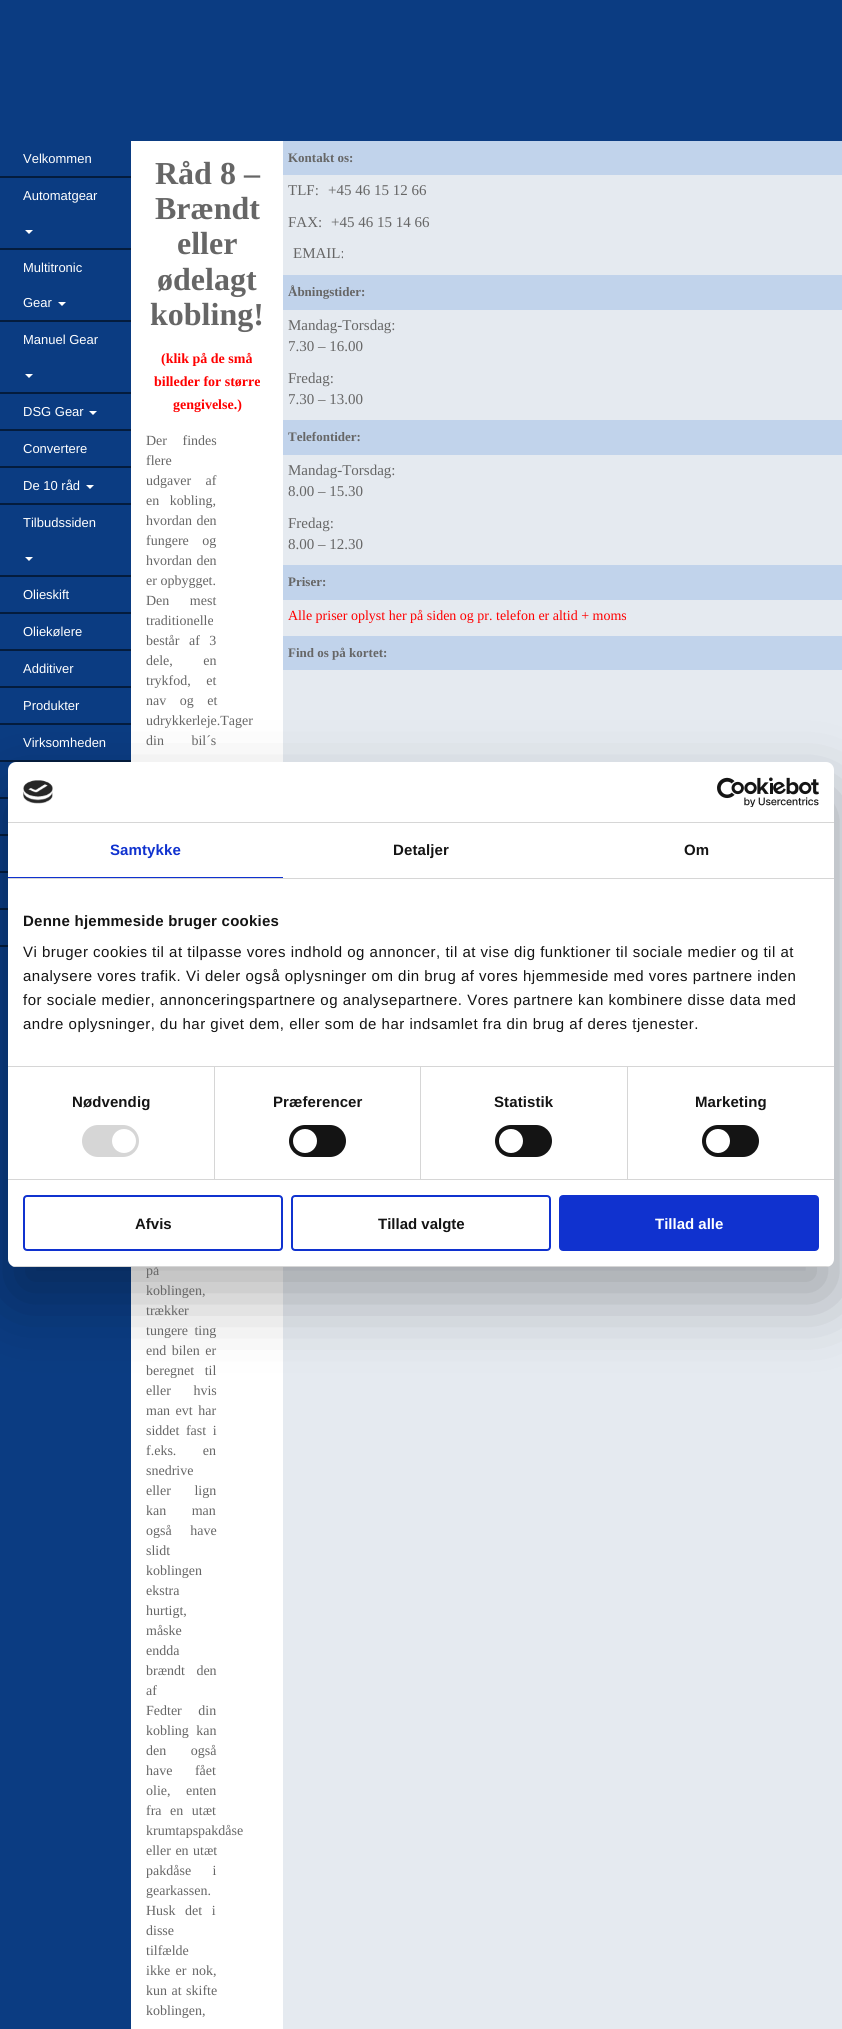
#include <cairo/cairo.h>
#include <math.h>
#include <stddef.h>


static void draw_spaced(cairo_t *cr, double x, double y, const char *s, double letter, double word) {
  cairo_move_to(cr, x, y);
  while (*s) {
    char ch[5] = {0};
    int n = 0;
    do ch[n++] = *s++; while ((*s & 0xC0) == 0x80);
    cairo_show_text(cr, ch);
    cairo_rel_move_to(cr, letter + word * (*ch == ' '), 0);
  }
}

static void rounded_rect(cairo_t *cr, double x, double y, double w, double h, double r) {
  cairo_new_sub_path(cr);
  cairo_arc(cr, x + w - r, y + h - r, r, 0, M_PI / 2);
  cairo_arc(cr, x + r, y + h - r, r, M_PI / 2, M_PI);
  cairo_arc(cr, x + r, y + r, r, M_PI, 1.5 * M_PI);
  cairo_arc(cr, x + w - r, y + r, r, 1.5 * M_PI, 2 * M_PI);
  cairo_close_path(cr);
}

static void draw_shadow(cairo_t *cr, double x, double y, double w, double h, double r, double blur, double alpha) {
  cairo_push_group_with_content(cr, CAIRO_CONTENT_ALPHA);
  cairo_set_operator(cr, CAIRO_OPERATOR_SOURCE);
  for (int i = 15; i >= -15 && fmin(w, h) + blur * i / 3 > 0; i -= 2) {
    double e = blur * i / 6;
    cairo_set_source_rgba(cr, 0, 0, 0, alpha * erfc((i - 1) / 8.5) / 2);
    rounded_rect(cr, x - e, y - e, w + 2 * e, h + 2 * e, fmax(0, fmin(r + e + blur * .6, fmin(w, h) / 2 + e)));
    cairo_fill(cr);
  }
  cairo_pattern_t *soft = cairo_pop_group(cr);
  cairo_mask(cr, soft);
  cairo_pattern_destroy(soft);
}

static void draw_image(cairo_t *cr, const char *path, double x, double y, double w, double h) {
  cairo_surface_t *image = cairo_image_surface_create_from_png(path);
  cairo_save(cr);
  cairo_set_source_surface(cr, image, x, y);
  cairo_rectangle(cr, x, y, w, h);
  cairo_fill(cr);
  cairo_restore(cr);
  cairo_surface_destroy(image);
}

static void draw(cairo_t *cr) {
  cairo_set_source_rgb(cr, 1, 1, 1);
  cairo_paint(cr);
  cairo_set_source_rgb(cr, 11 / 255.0, 60 / 255.0, 130 / 255.0);
  cairo_rectangle(cr, 0, 0, 842, 141);
  cairo_fill(cr);
  cairo_rectangle(cr, 0, 141, 131, 1888);
  cairo_fill(cr);
  cairo_set_source_rgb(cr, 4 / 255.0, 28 / 255.0, 61 / 255.0);
  cairo_rectangle(cr, 0, 176, 131, 2);
  cairo_fill(cr);
  cairo_rectangle(cr, 0, 248, 131, 2);
  cairo_fill(cr);
  cairo_set_source_rgb(cr, 1, 1, 1);
  cairo_new_path(cr);
  cairo_move_to(cr, 25, 230);
  cairo_line_to(cr, 33, 230);
  cairo_line_to(cr, 29, 234);
  cairo_close_path(cr);
  cairo_fill(cr);
  cairo_set_source_rgb(cr, 4 / 255.0, 28 / 255.0, 61 / 255.0);
  cairo_rectangle(cr, 0, 320, 131, 2);
  cairo_fill(cr);
  cairo_set_source_rgb(cr, 1, 1, 1);
  cairo_new_path(cr);
  cairo_move_to(cr, 58, 302);
  cairo_line_to(cr, 66, 302);
  cairo_line_to(cr, 62, 306);
  cairo_close_path(cr);
  cairo_fill(cr);
  cairo_set_source_rgb(cr, 4 / 255.0, 28 / 255.0, 61 / 255.0);
  cairo_rectangle(cr, 0, 392, 131, 2);
  cairo_fill(cr);
  cairo_set_source_rgb(cr, 1, 1, 1);
  cairo_new_path(cr);
  cairo_move_to(cr, 25, 374);
  cairo_line_to(cr, 33, 374);
  cairo_line_to(cr, 29, 378);
  cairo_close_path(cr);
  cairo_fill(cr);
  cairo_set_source_rgb(cr, 4 / 255.0, 28 / 255.0, 61 / 255.0);
  cairo_rectangle(cr, 0, 429, 131, 2);
  cairo_fill(cr);
  cairo_set_source_rgb(cr, 1, 1, 1);
  cairo_new_path(cr);
  cairo_move_to(cr, 89, 411);
  cairo_line_to(cr, 97, 411);
  cairo_line_to(cr, 93, 415);
  cairo_close_path(cr);
  cairo_fill(cr);
  cairo_set_source_rgb(cr, 4 / 255.0, 28 / 255.0, 61 / 255.0);
  cairo_rectangle(cr, 0, 466, 131, 2);
  cairo_fill(cr);
  cairo_rectangle(cr, 0, 503, 131, 2);
  cairo_fill(cr);
  cairo_set_source_rgb(cr, 1, 1, 1);
  cairo_new_path(cr);
  cairo_move_to(cr, 86, 485);
  cairo_line_to(cr, 94, 485);
  cairo_line_to(cr, 90, 489);
  cairo_close_path(cr);
  cairo_fill(cr);
  cairo_set_source_rgb(cr, 4 / 255.0, 28 / 255.0, 61 / 255.0);
  cairo_rectangle(cr, 0, 575, 131, 2);
  cairo_fill(cr);
  cairo_set_source_rgb(cr, 1, 1, 1);
  cairo_new_path(cr);
  cairo_move_to(cr, 25, 557);
  cairo_line_to(cr, 33, 557);
  cairo_line_to(cr, 29, 561);
  cairo_close_path(cr);
  cairo_fill(cr);
  cairo_set_source_rgb(cr, 4 / 255.0, 28 / 255.0, 61 / 255.0);
  cairo_rectangle(cr, 0, 612, 131, 2);
  cairo_fill(cr);
  cairo_rectangle(cr, 0, 649, 131, 2);
  cairo_fill(cr);
  cairo_rectangle(cr, 0, 686, 131, 2);
  cairo_fill(cr);
  cairo_rectangle(cr, 0, 723, 131, 2);
  cairo_fill(cr);
  cairo_rectangle(cr, 0, 760, 131, 2);
  cairo_fill(cr);
  cairo_rectangle(cr, 0, 797, 8, 2);
  cairo_fill(cr);
  cairo_rectangle(cr, 0, 834, 8, 2);
  cairo_fill(cr);
  cairo_rectangle(cr, 0, 871, 8, 2);
  cairo_fill(cr);
  cairo_rectangle(cr, 0, 908, 8, 2);
  cairo_fill(cr);
  cairo_rectangle(cr, 0, 945, 8, 2);
  cairo_fill(cr);
  cairo_set_source_rgb(cr, 229 / 255.0, 234 / 255.0, 240 / 255.0);
  cairo_rectangle(cr, 283, 175, 559, 1854);
  cairo_fill(cr);
  cairo_set_source_rgb(cr, 193 / 255.0, 211 / 255.0, 235 / 255.0);
  cairo_rectangle(cr, 283, 141, 559, 34);
  cairo_fill(cr);
  cairo_rectangle(cr, 283, 275, 559, 35);
  cairo_fill(cr);
  cairo_rectangle(cr, 283, 420, 559, 35);
  cairo_fill(cr);
  cairo_rectangle(cr, 283, 565, 559, 35);
  cairo_fill(cr);
  cairo_rectangle(cr, 283, 636, 559, 34);
  cairo_fill(cr);
  cairo_set_source_rgb(cr, 0, 0, 0);
  draw_shadow(cr, 8, 794, 826, 505, 8, 34, 0.3);
  cairo_select_font_face(cr, "Liberation Sans", CAIRO_FONT_SLANT_NORMAL, CAIRO_FONT_WEIGHT_NORMAL);
  cairo_set_font_size(cr, 13);
  cairo_set_source_rgb(cr, 1, 1, 1);
  cairo_move_to(cr, 23, 163);
  cairo_show_text(cr, "Velkommen");
  cairo_move_to(cr, 23, 200);
  cairo_show_text(cr, "Automatgear");
  cairo_move_to(cr, 23, 272);
  cairo_show_text(cr, "Multitronic");
  cairo_move_to(cr, 23, 307);
  cairo_show_text(cr, "Gear");
  cairo_move_to(cr, 23, 344);
  cairo_show_text(cr, "Manuel Gear");
  cairo_move_to(cr, 23, 416);
  cairo_show_text(cr, "DSG Gear");
  cairo_move_to(cr, 23, 453);
  cairo_show_text(cr, "Convertere");
  cairo_move_to(cr, 23, 490);
  cairo_show_text(cr, "De 10 råd");
  cairo_move_to(cr, 23, 527);
  cairo_show_text(cr, "Tilbudssiden");
  cairo_move_to(cr, 23, 599);
  cairo_show_text(cr, "Olieskift");
  cairo_move_to(cr, 23, 636);
  cairo_show_text(cr, "Oliekølere");
  cairo_move_to(cr, 23, 673);
  cairo_show_text(cr, "Additiver");
  cairo_move_to(cr, 23, 710);
  cairo_show_text(cr, "Produkter");
  cairo_move_to(cr, 23, 747);
  cairo_show_text(cr, "Virksomheden");
  cairo_select_font_face(cr, "Liberation Serif", CAIRO_FONT_SLANT_NORMAL, CAIRO_FONT_WEIGHT_BOLD);
  cairo_set_font_size(cr, 32);
  cairo_set_source_rgb(cr, 102 / 255.0, 102 / 255.0, 102 / 255.0);
  cairo_move_to(cr, 155, 184);
  cairo_show_text(cr, "Råd 8 –");
  cairo_move_to(cr, 155, 219);
  cairo_show_text(cr, "Brændt");
  cairo_move_to(cr, 177, 254);
  cairo_show_text(cr, "eller");
  cairo_move_to(cr, 157, 290);
  cairo_show_text(cr, "ødelagt");
  cairo_move_to(cr, 150, 325);
  cairo_show_text(cr, "kobling!");
  cairo_set_font_size(cr, 14);
  cairo_set_source_rgb(cr, 1, 0, 0);
  cairo_move_to(cr, 161, 363);
  cairo_show_text(cr, "(klik på de små");
  cairo_move_to(cr, 154, 386);
  cairo_show_text(cr, "billeder for større");
  cairo_move_to(cr, 173, 409);
  cairo_show_text(cr, "gengivelse.)");
  cairo_select_font_face(cr, "Liberation Serif", CAIRO_FONT_SLANT_NORMAL, CAIRO_FONT_WEIGHT_NORMAL);
  cairo_set_source_rgb(cr, 102 / 255.0, 102 / 255.0, 102 / 255.0);
  draw_spaced(cr, 146, 445, "Der findes", 0, 12);
  cairo_move_to(cr, 146, 465);
  cairo_show_text(cr, "flere");
  draw_spaced(cr, 146, 485, "udgaver af", 0, 11);
  draw_spaced(cr, 146, 505, "en kobling,", 0, 7);
  draw_spaced(cr, 146, 525, "hvordan den", 0, 1);
  draw_spaced(cr, 146, 545, "fungere og", 0, 10);
  draw_spaced(cr, 146, 565, "hvordan den", 0, 1);
  cairo_move_to(cr, 146, 585);
  cairo_show_text(cr, "er opbygget.");
  draw_spaced(cr, 146, 605, "Den mest", 0, 17);
  cairo_move_to(cr, 146, 625);
  cairo_show_text(cr, "traditionelle");
  draw_spaced(cr, 146, 645, "består af 3", 0, 6);
  draw_spaced(cr, 146, 665, "dele, en", 0, 27);
  draw_spaced(cr, 146, 685, "trykfod, et", 0, 12);
  draw_spaced(cr, 146, 705, "nav og et", 0, 10);
  cairo_move_to(cr, 146, 725);
  cairo_show_text(cr, "udrykkerleje.Tager");
  draw_spaced(cr, 146, 745, "din bil´s", 0, 24);
  cairo_move_to(cr, 146, 1275);
  cairo_show_text(cr, "på");
  cairo_move_to(cr, 146, 1295);
  cairo_show_text(cr, "koblingen,");
  cairo_move_to(cr, 146, 1315);
  cairo_show_text(cr, "trækker");
  draw_spaced(cr, 146, 1335, "tungere ting", 0, 3);
  draw_spaced(cr, 146, 1355, "end bilen er", 0, 2);
  draw_spaced(cr, 146, 1375, "beregnet til", 0, 7);
  draw_spaced(cr, 146, 1395, "eller hvis", 0, 19);
  draw_spaced(cr, 146, 1415, "man evt har", 0, 2);
  draw_spaced(cr, 146, 1435, "siddet fast i", 0, 3);
  draw_spaced(cr, 146, 1455, "f.eks. en", 0, 23);
  cairo_move_to(cr, 146, 1475);
  cairo_show_text(cr, "snedrive");
  draw_spaced(cr, 146, 1495, "eller lign", 0, 20);
  draw_spaced(cr, 146, 1515, "kan man", 0, 22);
  draw_spaced(cr, 146, 1535, "også have", 0, 15);
  cairo_move_to(cr, 146, 1555);
  cairo_show_text(cr, "slidt");
  cairo_move_to(cr, 146, 1575);
  cairo_show_text(cr, "koblingen");
  cairo_move_to(cr, 146, 1595);
  cairo_show_text(cr, "ekstra");
  cairo_move_to(cr, 146, 1615);
  cairo_show_text(cr, "hurtigt,");
  cairo_move_to(cr, 146, 1635);
  cairo_show_text(cr, "måske");
  cairo_move_to(cr, 146, 1655);
  cairo_show_text(cr, "endda");
  draw_spaced(cr, 146, 1675, "brændt den", 0, 8);
  cairo_move_to(cr, 146, 1695);
  cairo_show_text(cr, "af");
  draw_spaced(cr, 146, 1715, "Fedter din", 0, 13);
  draw_spaced(cr, 146, 1735, "kobling kan", 0, 4);
  draw_spaced(cr, 146, 1755, "den også", 0, 21);
  draw_spaced(cr, 146, 1775, "have fået", 0, 19);
  draw_spaced(cr, 146, 1795, "olie, enten", 0, 12);
  draw_spaced(cr, 146, 1815, "fra en utæt", 0, 5);
  cairo_move_to(cr, 146, 1835);
  cairo_show_text(cr, "krumtapspakdåse");
  draw_spaced(cr, 146, 1855, "eller en utæt", 0, 1);
  draw_spaced(cr, 146, 1875, "pakdåse i", 0, 18);
  cairo_move_to(cr, 146, 1895);
  cairo_show_text(cr, "gearkassen.");
  draw_spaced(cr, 146, 1915, "Husk det i", 0, 6);
  cairo_move_to(cr, 146, 1935);
  cairo_show_text(cr, "disse");
  cairo_move_to(cr, 146, 1955);
  cairo_show_text(cr, "tilfælde");
  draw_spaced(cr, 146, 1975, "ikke er nok,", 0, 2);
  draw_spaced(cr, 146, 1995, "kun at skifte", 0, 1);
  cairo_move_to(cr, 146, 2015);
  cairo_show_text(cr, "koblingen,");
  cairo_select_font_face(cr, "Liberation Serif", CAIRO_FONT_SLANT_NORMAL, CAIRO_FONT_WEIGHT_BOLD);
  cairo_set_font_size(cr, 13);
  cairo_move_to(cr, 288, 162);
  cairo_show_text(cr, "Kontakt os:");
  cairo_select_font_face(cr, "Liberation Serif", CAIRO_FONT_SLANT_NORMAL, CAIRO_FONT_WEIGHT_NORMAL);
  cairo_set_font_size(cr, 15);
  cairo_move_to(cr, 288, 195);
  cairo_show_text(cr, "TLF:");
  cairo_move_to(cr, 328, 195);
  cairo_show_text(cr, "+45 46 15 12 66");
  cairo_move_to(cr, 288, 227);
  cairo_show_text(cr, "FAX:");
  cairo_move_to(cr, 331, 227);
  cairo_show_text(cr, "+45 46 15 14 66");
  cairo_move_to(cr, 293, 258);
  cairo_show_text(cr, "EMAIL:");
  cairo_select_font_face(cr, "Liberation Serif", CAIRO_FONT_SLANT_NORMAL, CAIRO_FONT_WEIGHT_BOLD);
  cairo_set_font_size(cr, 13);
  cairo_move_to(cr, 288, 296);
  cairo_show_text(cr, "Åbningstider:");
  cairo_select_font_face(cr, "Liberation Serif", CAIRO_FONT_SLANT_NORMAL, CAIRO_FONT_WEIGHT_NORMAL);
  cairo_set_font_size(cr, 15);
  cairo_move_to(cr, 288, 330);
  cairo_show_text(cr, "Mandag-Torsdag:");
  cairo_move_to(cr, 288, 351);
  cairo_show_text(cr, "7.30 – 16.00");
  cairo_move_to(cr, 288, 383);
  cairo_show_text(cr, "Fredag:");
  cairo_move_to(cr, 288, 404);
  cairo_show_text(cr, "7.30 – 13.00");
  cairo_select_font_face(cr, "Liberation Serif", CAIRO_FONT_SLANT_NORMAL, CAIRO_FONT_WEIGHT_BOLD);
  cairo_set_font_size(cr, 13);
  cairo_move_to(cr, 288, 441);
  cairo_show_text(cr, "Telefontider:");
  cairo_select_font_face(cr, "Liberation Serif", CAIRO_FONT_SLANT_NORMAL, CAIRO_FONT_WEIGHT_NORMAL);
  cairo_set_font_size(cr, 15);
  cairo_move_to(cr, 288, 475);
  cairo_show_text(cr, "Mandag-Torsdag:");
  cairo_move_to(cr, 288, 496);
  cairo_show_text(cr, "8.00 – 15.30");
  cairo_move_to(cr, 288, 528);
  cairo_show_text(cr, "Fredag:");
  cairo_move_to(cr, 288, 549);
  cairo_show_text(cr, "8.00 – 12.30");
  cairo_select_font_face(cr, "Liberation Serif", CAIRO_FONT_SLANT_NORMAL, CAIRO_FONT_WEIGHT_BOLD);
  cairo_set_font_size(cr, 13);
  cairo_move_to(cr, 288, 586);
  cairo_show_text(cr, "Priser:");
  cairo_select_font_face(cr, "Liberation Serif", CAIRO_FONT_SLANT_NORMAL, CAIRO_FONT_WEIGHT_NORMAL);
  cairo_set_font_size(cr, 14);
  cairo_set_source_rgb(cr, 1, 0, 0);
  cairo_move_to(cr, 288, 620);
  cairo_show_text(cr, "Alle priser oplyst her på siden og pr. telefon er altid + moms");
  cairo_select_font_face(cr, "Liberation Serif", CAIRO_FONT_SLANT_NORMAL, CAIRO_FONT_WEIGHT_BOLD);
  cairo_set_font_size(cr, 13);
  cairo_set_source_rgb(cr, 102 / 255.0, 102 / 255.0, 102 / 255.0);
  cairo_move_to(cr, 288, 657);
  cairo_show_text(cr, "Find os på kortet:");
  cairo_set_source_rgb(cr, 1, 1, 1);
  rounded_rect(cr, 8, 762, 826, 505, 8);
  cairo_fill(cr);
  cairo_set_source_rgb(cr, 214 / 255.0, 214 / 255.0, 214 / 255.0);
  cairo_rectangle(cr, 8, 822, 826, 1);
  cairo_fill(cr);
  draw_image(cr, "images/1.png", 23, 780, 30, 24);
  draw_image(cr, "images/2.png", 717, 777, 102, 30);
  cairo_rectangle(cr, 8, 878, 826, 1);
  cairo_fill(cr);
  cairo_set_source_rgb(cr, 16 / 255.0, 50 / 255.0, 207 / 255.0);
  cairo_rectangle(cr, 8, 877, 275, 1);
  cairo_fill(cr);
  cairo_select_font_face(cr, "Liberation Sans", CAIRO_FONT_SLANT_NORMAL, CAIRO_FONT_WEIGHT_BOLD);
  cairo_set_font_size(cr, 15);
  draw_spaced(cr, 110, 855, "Samtykke", 0.1, 0);
  cairo_set_source_rgb(cr, 20 / 255.0, 20 / 255.0, 20 / 255.0);
  draw_spaced(cr, 393, 855, "Detaljer", 0.1, 0);
  draw_spaced(cr, 684, 855, "Om", 0.1, 0);
  cairo_set_source_rgb(cr, 214 / 255.0, 214 / 255.0, 214 / 255.0);
  cairo_rectangle(cr, 8, 1066, 826, 1);
  cairo_fill(cr);
  cairo_set_source_rgb(cr, 20 / 255.0, 20 / 255.0, 20 / 255.0);
  draw_spaced(cr, 23, 926, "Denne hjemmeside bruger cookies", 0.25, 0);
  cairo_select_font_face(cr, "Liberation Sans", CAIRO_FONT_SLANT_NORMAL, CAIRO_FONT_WEIGHT_NORMAL);
  draw_spaced(cr, 23, 957, "Vi bruger cookies til at tilpasse vores indhold og annoncer, til at vise dig funktioner til sociale medier og til at", 0.5, 0);
  draw_spaced(cr, 23, 981, "analysere vores trafik. Vi deler også oplysninger om din brug af vores hjemmeside med vores partnere inden", 0.5, 0);
  draw_spaced(cr, 23, 1005, "for sociale medier, annonceringspartnere og analysepartnere. Vores partnere kan kombinere disse data med", 0.5, 0);
  draw_spaced(cr, 23, 1029, "andre oplysninger, du har givet dem, eller som de har indsamlet fra din brug af deres tjenester.", 0.5, 0);
  cairo_set_source_rgb(cr, 214 / 255.0, 214 / 255.0, 214 / 255.0);
  cairo_rectangle(cr, 8, 1179, 826, 1);
  cairo_fill(cr);
  cairo_rectangle(cr, 214, 1067, 1, 112);
  cairo_fill(cr);
  cairo_select_font_face(cr, "Liberation Sans", CAIRO_FONT_SLANT_NORMAL, CAIRO_FONT_WEIGHT_BOLD);
  cairo_set_source_rgb(cr, 20 / 255.0, 20 / 255.0, 20 / 255.0);
  draw_spaced(cr, 72, 1107, "Nødvendig", 0.1, 0);
  cairo_set_source_rgb(cr, 214 / 255.0, 214 / 255.0, 214 / 255.0);
  rounded_rect(cr, 82, 1125, 57, 32, 16);
  cairo_fill(cr);
  cairo_set_source_rgb(cr, 1, 1, 1);
  cairo_arc(cr, 124, 1141, 12, 0, 2 * M_PI);
  cairo_fill(cr);
  cairo_set_source_rgb(cr, 214 / 255.0, 214 / 255.0, 214 / 255.0);
  cairo_rectangle(cr, 420, 1067, 1, 112);
  cairo_fill(cr);
  cairo_set_source_rgb(cr, 20 / 255.0, 20 / 255.0, 20 / 255.0);
  draw_spaced(cr, 273, 1107, "Præferencer", 0.1, 0);
  rounded_rect(cr, 289, 1125, 57, 32, 16);
  cairo_fill(cr);
  cairo_set_source_rgb(cr, 1, 1, 1);
  cairo_arc(cr, 305, 1141, 12, 0, 2 * M_PI);
  cairo_fill(cr);
  cairo_set_source_rgb(cr, 214 / 255.0, 214 / 255.0, 214 / 255.0);
  cairo_rectangle(cr, 627, 1067, 1, 112);
  cairo_fill(cr);
  cairo_set_source_rgb(cr, 20 / 255.0, 20 / 255.0, 20 / 255.0);
  draw_spaced(cr, 494, 1107, "Statistik", 0.1, 0);
  rounded_rect(cr, 495, 1125, 57, 32, 16);
  cairo_fill(cr);
  cairo_set_source_rgb(cr, 1, 1, 1);
  cairo_arc(cr, 511, 1141, 12, 0, 2 * M_PI);
  cairo_fill(cr);
  cairo_set_source_rgb(cr, 20 / 255.0, 20 / 255.0, 20 / 255.0);
  draw_spaced(cr, 695, 1107, "Marketing", 0.1, 0);
  rounded_rect(cr, 702, 1125, 57, 32, 16);
  cairo_fill(cr);
  cairo_set_source_rgb(cr, 1, 1, 1);
  cairo_arc(cr, 718, 1141, 12, 0, 2 * M_PI);
  cairo_fill(cr);
  cairo_save(cr);
  rounded_rect(cr, 8, 762, 826, 505, 8);
  cairo_clip(cr);
  cairo_set_source_rgb(cr, 214 / 255.0, 214 / 255.0, 214 / 255.0);
  cairo_rectangle(cr, 8, 1266, 826, 1);
  cairo_fill(cr);
  cairo_restore(cr);
  rounded_rect(cr, 24, 1196, 258, 54, 3);
  cairo_set_source_rgb(cr, 16 / 255.0, 50 / 255.0, 207 / 255.0);
  cairo_stroke(cr);
  cairo_set_source_rgb(cr, 20 / 255.0, 20 / 255.0, 20 / 255.0);
  cairo_move_to(cr, 135, 1229);
  cairo_show_text(cr, "Afvis");
  rounded_rect(cr, 292, 1196, 258, 54, 3);
  cairo_set_source_rgb(cr, 16 / 255.0, 50 / 255.0, 207 / 255.0);
  cairo_stroke(cr);
  cairo_set_source_rgb(cr, 20 / 255.0, 20 / 255.0, 20 / 255.0);
  cairo_move_to(cr, 378, 1229);
  cairo_show_text(cr, "Tillad valgte");
  cairo_set_source_rgb(cr, 16 / 255.0, 50 / 255.0, 207 / 255.0);
  rounded_rect(cr, 560, 1196, 258, 54, 3);
  cairo_fill_preserve(cr);
  cairo_stroke(cr);
  cairo_set_source_rgb(cr, 1, 1, 1);
  cairo_move_to(cr, 655, 1229);
  cairo_show_text(cr, "Tillad alle");
}

int main(void) {
  cairo_surface_t *surface = cairo_image_surface_create(CAIRO_FORMAT_RGB24, 842, 2029);
  cairo_t *cr = cairo_create(surface);
  cairo_font_options_t *options = cairo_font_options_create();
  cairo_font_options_set_hint_metrics(options, CAIRO_HINT_METRICS_OFF);
  cairo_font_options_set_hint_style(options, CAIRO_HINT_STYLE_NONE);
  cairo_set_font_options(cr, options);
  cairo_set_miter_limit(cr, 4);
  draw(cr);
  cairo_surface_write_to_png(surface, "out.png");
  cairo_font_options_destroy(options);
  cairo_destroy(cr);
  cairo_surface_destroy(surface);
  return 0;
}
